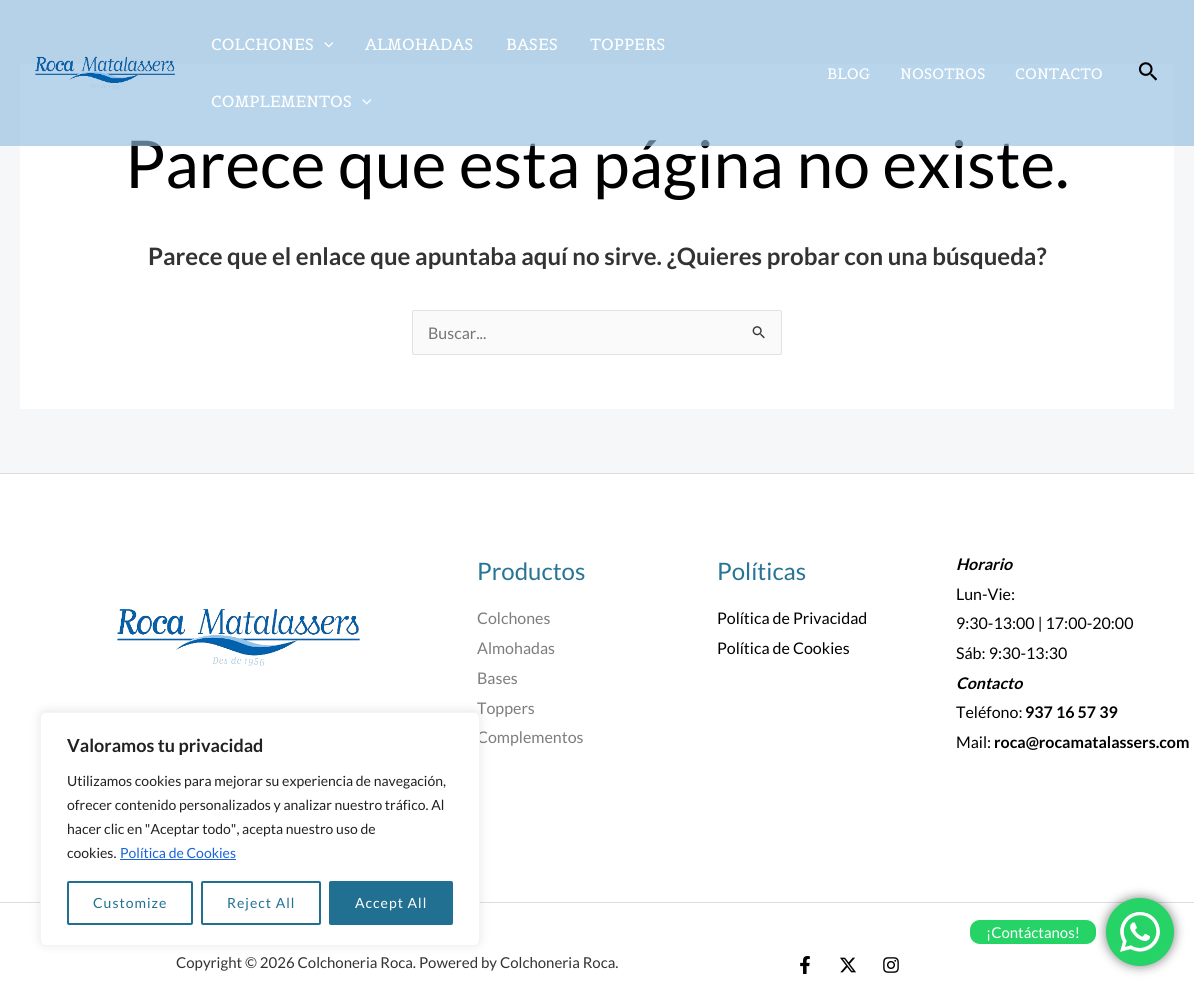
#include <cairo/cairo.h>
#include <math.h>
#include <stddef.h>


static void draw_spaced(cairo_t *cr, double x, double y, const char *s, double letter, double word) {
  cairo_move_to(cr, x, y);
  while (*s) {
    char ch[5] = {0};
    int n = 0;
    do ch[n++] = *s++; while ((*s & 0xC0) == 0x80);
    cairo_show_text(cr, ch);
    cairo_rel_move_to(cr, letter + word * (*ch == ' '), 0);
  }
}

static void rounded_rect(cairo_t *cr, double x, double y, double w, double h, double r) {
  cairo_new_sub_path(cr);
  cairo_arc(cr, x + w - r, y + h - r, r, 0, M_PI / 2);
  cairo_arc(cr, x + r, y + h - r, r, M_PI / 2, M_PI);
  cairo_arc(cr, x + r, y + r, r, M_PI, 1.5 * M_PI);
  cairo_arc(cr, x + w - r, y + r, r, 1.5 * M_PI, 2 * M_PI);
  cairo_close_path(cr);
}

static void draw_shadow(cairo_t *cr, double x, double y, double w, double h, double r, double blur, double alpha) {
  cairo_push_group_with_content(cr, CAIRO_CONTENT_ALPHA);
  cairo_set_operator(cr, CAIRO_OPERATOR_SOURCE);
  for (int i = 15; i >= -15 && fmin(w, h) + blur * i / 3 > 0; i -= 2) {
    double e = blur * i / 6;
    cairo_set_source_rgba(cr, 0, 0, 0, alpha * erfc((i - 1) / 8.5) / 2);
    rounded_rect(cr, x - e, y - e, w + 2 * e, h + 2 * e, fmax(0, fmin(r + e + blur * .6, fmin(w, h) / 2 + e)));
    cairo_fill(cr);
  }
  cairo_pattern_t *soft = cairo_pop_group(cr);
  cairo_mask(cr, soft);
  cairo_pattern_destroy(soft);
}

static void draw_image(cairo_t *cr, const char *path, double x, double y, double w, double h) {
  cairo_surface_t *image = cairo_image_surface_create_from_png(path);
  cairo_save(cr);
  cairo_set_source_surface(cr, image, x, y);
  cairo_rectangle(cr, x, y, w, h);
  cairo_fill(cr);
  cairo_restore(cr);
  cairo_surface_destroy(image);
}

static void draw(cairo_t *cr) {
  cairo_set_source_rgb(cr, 245 / 255.0, 247 / 255.0, 249 / 255.0);
  cairo_paint(cr);
  cairo_set_source_rgb(cr, 1, 1, 1);
  cairo_rectangle(cr, 20, 64, 1154, 345);
  cairo_fill(cr);
  cairo_set_source_rgb(cr, 250 / 255.0, 250 / 255.0, 250 / 255.0);
  rounded_rect(cr, 412.5, 310.5, 369, 44, 1.5);
  cairo_fill_preserve(cr);
  cairo_set_source_rgb(cr, 226 / 255.0, 226 / 255.0, 226 / 255.0);
  cairo_set_line_width(cr, 1);
  cairo_stroke(cr);
  draw_image(cr, "images/5.png", 752, 326, 13, 13);
  cairo_set_source_rgb(cr, 1, 1, 1);
  cairo_rectangle(cr, 0, 474, 1194, 512);
  cairo_fill(cr);
  cairo_set_source_rgb(cr, 221 / 255.0, 221 / 255.0, 221 / 255.0);
  cairo_rectangle(cr, 0, 473, 1194, 1);
  cairo_fill(cr);
  draw_image(cr, "images/6.png", 117, 609, 243, 57);
  cairo_rectangle(cr, 0, 902, 1194, 1);
  cairo_fill(cr);
  draw_image(cr, "images/7.png", 800, 956, 10, 18);
  draw_image(cr, "images/8.png", 840, 957, 16, 16);
  draw_image(cr, "images/9.png", 883, 957, 16, 16);
  cairo_set_source_rgb(cr, 172 / 255.0, 171 / 255.0, 171 / 255.0);
  draw_shadow(cr, 40, 711, 440, 234, 6, 5, 0.3);
  cairo_set_source_rgb(cr, 37 / 255.0, 211 / 255.0, 102 / 255.0);
  rounded_rect(cr, 970, 920, 126, 24, 10);
  cairo_fill(cr);
  cairo_set_source_rgb(cr, 0, 0, 0);
  draw_shadow(cr, 1106, 898, 68, 68, 34, 5.5, 0.5);
  cairo_set_source_rgb(cr, 37 / 255.0, 211 / 255.0, 102 / 255.0);
  cairo_arc(cr, 1140, 932, 34, 0, 2 * M_PI);
  cairo_fill(cr);
  draw_image(cr, "images/10.png", 1120, 912, 40, 40);
  cairo_select_font_face(cr, "Lato", CAIRO_FONT_SLANT_NORMAL, CAIRO_FONT_WEIGHT_NORMAL);
  cairo_set_font_size(cr, 66);
  cairo_set_source_rgb(cr, 0, 0, 0);
  cairo_move_to(cr, 125, 188);
  cairo_show_text(cr, "Parece que esta página no existe.");
  cairo_set_source_rgba(cr, 146 / 255.0, 189 / 255.0, 224 / 255.0, 0.64);
  cairo_rectangle(cr, 0, 0, 1194, 146);
  cairo_fill(cr);
  draw_image(cr, "images/4.png", 1138, 62, 19, 19);
  cairo_select_font_face(cr, "Belgrano", CAIRO_FONT_SLANT_NORMAL, CAIRO_FONT_WEIGHT_NORMAL);
  cairo_set_font_size(cr, 15);
  cairo_set_source_rgb(cr, 1, 1, 1);
  cairo_move_to(cr, 1015, 79);
  cairo_show_text(cr, "CONTACTO");
  cairo_move_to(cr, 900, 79);
  cairo_show_text(cr, "NOSOTROS");
  cairo_move_to(cr, 827, 79);
  cairo_show_text(cr, "BLOG");
  draw_image(cr, "images/3.png", 362, 99, 9, 6);
  cairo_set_font_size(cr, 16);
  cairo_move_to(cr, 211, 107);
  cairo_show_text(cr, "COMPLEMENTOS");
  cairo_move_to(cr, 590, 50);
  cairo_show_text(cr, "TOPPERS");
  cairo_move_to(cr, 506, 50);
  cairo_show_text(cr, "BASES");
  cairo_move_to(cr, 365, 50);
  cairo_show_text(cr, "ALMOHADAS");
  draw_image(cr, "images/2.png", 324, 42, 9, 6);
  cairo_move_to(cr, 211, 50);
  cairo_show_text(cr, "COLCHONES");
  draw_image(cr, "images/1.png", 35, 56, 140, 33);
  cairo_select_font_face(cr, "Lato", CAIRO_FONT_SLANT_NORMAL, CAIRO_FONT_WEIGHT_BOLD);
  cairo_set_font_size(cr, 24);
  cairo_set_source_rgb(cr, 51 / 255.0, 51 / 255.0, 51 / 255.0);
  cairo_move_to(cr, 148, 265);
  cairo_show_text(cr, "Parece que el enlace que apuntaba aquí no sirve. ¿Quieres probar con una búsqueda?");
  cairo_select_font_face(cr, "Lato", CAIRO_FONT_SLANT_NORMAL, CAIRO_FONT_WEIGHT_NORMAL);
  cairo_set_font_size(cr, 16);
  cairo_set_source_rgb(cr, 117 / 255.0, 117 / 255.0, 117 / 255.0);
  cairo_move_to(cr, 428, 339);
  cairo_show_text(cr, "Buscar...");
  cairo_set_font_size(cr, 24);
  cairo_set_source_rgb(cr, 40 / 255.0, 116 / 255.0, 148 / 255.0);
  cairo_move_to(cr, 477, 580);
  cairo_show_text(cr, "Productos");
  cairo_set_font_size(cr, 16);
  cairo_set_source_rgb(cr, 125 / 255.0, 125 / 255.0, 125 / 255.0);
  cairo_move_to(cr, 477, 624);
  cairo_show_text(cr, "Colchones");
  cairo_move_to(cr, 477, 654);
  cairo_show_text(cr, "Almohadas");
  cairo_move_to(cr, 477, 684);
  cairo_show_text(cr, "Bases");
  cairo_move_to(cr, 477, 714);
  cairo_show_text(cr, "Toppers");
  cairo_move_to(cr, 477, 743);
  cairo_show_text(cr, "Complementos");
  cairo_set_font_size(cr, 24);
  cairo_set_source_rgb(cr, 40 / 255.0, 116 / 255.0, 148 / 255.0);
  cairo_move_to(cr, 717, 580);
  cairo_show_text(cr, "Políticas");
  cairo_set_font_size(cr, 16);
  cairo_set_source_rgb(cr, 0, 0, 0);
  cairo_move_to(cr, 717, 624);
  cairo_show_text(cr, "Política de Privacidad");
  cairo_move_to(cr, 717, 654);
  cairo_show_text(cr, "Política de Cookies");
  cairo_select_font_face(cr, "Lato", CAIRO_FONT_SLANT_ITALIC, CAIRO_FONT_WEIGHT_BOLD);
  cairo_move_to(cr, 956, 570);
  cairo_show_text(cr, "Horario");
  cairo_select_font_face(cr, "Lato", CAIRO_FONT_SLANT_NORMAL, CAIRO_FONT_WEIGHT_NORMAL);
  cairo_move_to(cr, 956, 600);
  cairo_show_text(cr, "Lun-Vie:");
  cairo_move_to(cr, 956, 629);
  cairo_show_text(cr, "9:30-13:00 | 17:00-20:00");
  cairo_move_to(cr, 956, 659);
  cairo_show_text(cr, "Sáb: 9:30-13:30");
  cairo_select_font_face(cr, "Lato", CAIRO_FONT_SLANT_ITALIC, CAIRO_FONT_WEIGHT_BOLD);
  cairo_move_to(cr, 956, 689);
  cairo_show_text(cr, "Contacto");
  cairo_select_font_face(cr, "Lato", CAIRO_FONT_SLANT_NORMAL, CAIRO_FONT_WEIGHT_NORMAL);
  cairo_move_to(cr, 956, 718);
  cairo_show_text(cr, "Teléfono:");
  cairo_select_font_face(cr, "Lato", CAIRO_FONT_SLANT_NORMAL, CAIRO_FONT_WEIGHT_BOLD);
  cairo_move_to(cr, 1025, 718);
  cairo_show_text(cr, "937 16 57 39");
  cairo_select_font_face(cr, "Lato", CAIRO_FONT_SLANT_NORMAL, CAIRO_FONT_WEIGHT_NORMAL);
  cairo_move_to(cr, 956, 748);
  cairo_show_text(cr, "Mail:");
  cairo_select_font_face(cr, "Lato", CAIRO_FONT_SLANT_NORMAL, CAIRO_FONT_WEIGHT_BOLD);
  cairo_move_to(cr, 994, 748);
  cairo_show_text(cr, "roca@rocamatalassers.com");
  cairo_select_font_face(cr, "Lato", CAIRO_FONT_SLANT_NORMAL, CAIRO_FONT_WEIGHT_NORMAL);
  cairo_set_font_size(cr, 15);
  cairo_set_source_rgb(cr, 51 / 255.0, 51 / 255.0, 51 / 255.0);
  cairo_move_to(cr, 176, 968);
  cairo_show_text(cr, "Copyright © 2026 Colchoneria Roca. Powered by Colchoneria Roca.");
  cairo_set_source_rgb(cr, 1, 1, 1);
  rounded_rect(cr, 40.5, 712.5, 439, 233, 5.5);
  cairo_fill_preserve(cr);
  cairo_set_source_rgb(cr, 244 / 255.0, 244 / 255.0, 244 / 255.0);
  cairo_stroke(cr);
  cairo_select_font_face(cr, "Lato", CAIRO_FONT_SLANT_NORMAL, CAIRO_FONT_WEIGHT_BOLD);
  cairo_set_font_size(cr, 18);
  cairo_set_source_rgb(cr, 33 / 255.0, 33 / 255.0, 33 / 255.0);
  cairo_move_to(cr, 67, 752);
  cairo_show_text(cr, "Valoramos tu privacidad");
  cairo_select_font_face(cr, "Lato", CAIRO_FONT_SLANT_NORMAL, CAIRO_FONT_WEIGHT_NORMAL);
  cairo_set_font_size(cr, 14);
  cairo_move_to(cr, 67, 786);
  cairo_show_text(cr, "Utilizamos cookies para mejorar su experiencia de navegación,");
  cairo_move_to(cr, 67, 810);
  cairo_show_text(cr, "ofrecer contenido personalizados y analizar nuestro tráfico. Al");
  cairo_move_to(cr, 67, 834);
  cairo_show_text(cr, "hacer clic en \"Aceptar todo\", acepta nuestro uso de");
  cairo_move_to(cr, 67, 858);
  cairo_show_text(cr, "cookies.");
  cairo_set_source_rgb(cr, 24 / 255.0, 99 / 255.0, 220 / 255.0);
  cairo_move_to(cr, 120, 858);
  cairo_show_text(cr, "Política de Cookies");
  cairo_rectangle(cr, 120, 859, 116, 1);
  cairo_fill(cr);
  rounded_rect(cr, 68, 882, 124, 42, 1);
  cairo_set_source_rgb(cr, 34 / 255.0, 112 / 255.0, 145 / 255.0);
  cairo_set_line_width(cr, 2);
  cairo_stroke(cr);
  draw_spaced(cr, 93, 908, "Customize", 1, 0);
  rounded_rect(cr, 202, 882, 118, 42, 1);
  cairo_stroke(cr);
  draw_spaced(cr, 227, 908, "Reject All", 1, 0);
  rounded_rect(cr, 330, 882, 122, 42, 1);
  cairo_fill_preserve(cr);
  cairo_stroke(cr);
  cairo_set_source_rgb(cr, 1, 1, 1);
  draw_spaced(cr, 355, 908, "Accept All", 1, 0);
  cairo_set_font_size(cr, 15);
  cairo_move_to(cr, 986, 938);
  cairo_show_text(cr, "¡Contáctanos!");
}

int main(void) {
  cairo_surface_t *surface = cairo_image_surface_create(CAIRO_FORMAT_RGB24, 1194, 986);
  cairo_t *cr = cairo_create(surface);
  cairo_font_options_t *options = cairo_font_options_create();
  cairo_font_options_set_hint_metrics(options, CAIRO_HINT_METRICS_OFF);
  cairo_font_options_set_hint_style(options, CAIRO_HINT_STYLE_NONE);
  cairo_set_font_options(cr, options);
  cairo_set_miter_limit(cr, 4);
  draw(cr);
  cairo_surface_write_to_png(surface, "out.png");
  cairo_font_options_destroy(options);
  cairo_destroy(cr);
  cairo_surface_destroy(surface);
  return 0;
}
